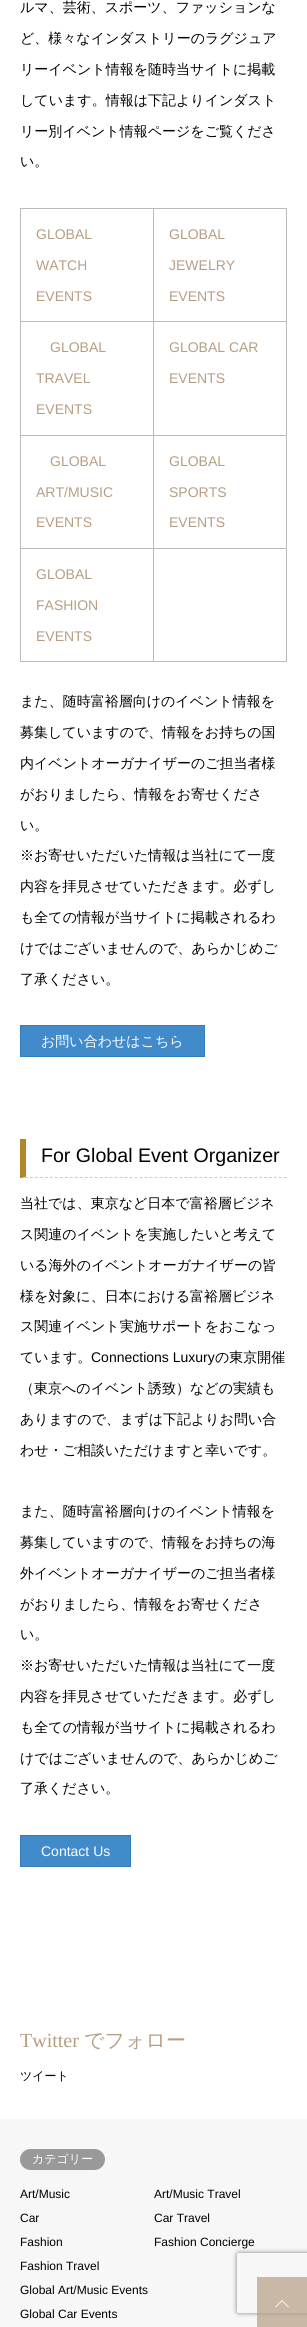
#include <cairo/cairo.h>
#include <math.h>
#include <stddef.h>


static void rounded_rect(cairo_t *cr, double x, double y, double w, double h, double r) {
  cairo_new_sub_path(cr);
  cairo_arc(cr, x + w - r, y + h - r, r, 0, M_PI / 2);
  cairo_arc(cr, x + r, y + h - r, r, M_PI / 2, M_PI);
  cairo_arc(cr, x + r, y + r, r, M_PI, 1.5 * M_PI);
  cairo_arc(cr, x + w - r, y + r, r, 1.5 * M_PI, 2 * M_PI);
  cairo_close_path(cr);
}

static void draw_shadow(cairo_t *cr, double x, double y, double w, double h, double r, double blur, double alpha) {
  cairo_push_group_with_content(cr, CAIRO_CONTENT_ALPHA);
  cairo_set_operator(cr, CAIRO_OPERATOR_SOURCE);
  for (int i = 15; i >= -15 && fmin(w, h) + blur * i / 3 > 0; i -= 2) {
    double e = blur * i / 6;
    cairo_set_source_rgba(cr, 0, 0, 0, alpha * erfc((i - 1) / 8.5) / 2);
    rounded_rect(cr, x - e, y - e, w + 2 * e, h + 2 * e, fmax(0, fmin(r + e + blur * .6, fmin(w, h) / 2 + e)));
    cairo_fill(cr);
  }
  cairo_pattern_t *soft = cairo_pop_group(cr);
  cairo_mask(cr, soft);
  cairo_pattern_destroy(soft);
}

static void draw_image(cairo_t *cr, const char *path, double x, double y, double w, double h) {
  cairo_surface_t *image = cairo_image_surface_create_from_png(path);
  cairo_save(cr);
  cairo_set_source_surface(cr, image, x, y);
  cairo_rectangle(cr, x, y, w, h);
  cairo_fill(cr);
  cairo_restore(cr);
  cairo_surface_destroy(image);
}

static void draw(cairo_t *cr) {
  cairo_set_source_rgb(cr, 1, 1, 1);
  cairo_paint(cr);
  cairo_set_source_rgb(cr, 187 / 255.0, 187 / 255.0, 187 / 255.0);
  cairo_rectangle(cr, 153, 208, 134, 1);
  cairo_fill(cr);
  cairo_rectangle(cr, 153, 321, 134, 1);
  cairo_fill(cr);
  cairo_rectangle(cr, 153, 435, 134, 1);
  cairo_fill(cr);
  cairo_rectangle(cr, 153, 548, 134, 1);
  cairo_fill(cr);
  cairo_rectangle(cr, 286, 548, 1, 114);
  cairo_fill(cr);
  cairo_rectangle(cr, 153, 661, 134, 1);
  cairo_fill(cr);
  cairo_rectangle(cr, 153, 548, 1, 114);
  cairo_fill(cr);
  cairo_rectangle(cr, 20, 548, 134, 1);
  cairo_fill(cr);
  cairo_rectangle(cr, 153, 435, 1, 114);
  cairo_fill(cr);
  cairo_rectangle(cr, 20, 435, 134, 1);
  cairo_fill(cr);
  cairo_rectangle(cr, 153, 321, 1, 115);
  cairo_fill(cr);
  cairo_rectangle(cr, 20, 321, 134, 1);
  cairo_fill(cr);
  cairo_rectangle(cr, 153, 208, 1, 114);
  cairo_fill(cr);
  cairo_rectangle(cr, 20, 208, 134, 1);
  cairo_fill(cr);
  cairo_rectangle(cr, 20, 661, 134, 1);
  cairo_fill(cr);
  cairo_rectangle(cr, 20, 548, 1, 114);
  cairo_fill(cr);
  cairo_rectangle(cr, 20, 435, 1, 114);
  cairo_fill(cr);
  cairo_rectangle(cr, 20, 321, 1, 115);
  cairo_fill(cr);
  cairo_rectangle(cr, 20, 208, 1, 114);
  cairo_fill(cr);
  cairo_rectangle(cr, 286, 435, 1, 114);
  cairo_fill(cr);
  cairo_rectangle(cr, 286, 321, 1, 115);
  cairo_fill(cr);
  cairo_rectangle(cr, 286, 208, 1, 114);
  cairo_fill(cr);
  cairo_set_source_rgb(cr, 66 / 255.0, 139 / 255.0, 202 / 255.0);
  cairo_rectangle(cr, 20.5, 1025.5, 184, 31);
  cairo_fill_preserve(cr);
  cairo_set_source_rgb(cr, 53 / 255.0, 126 / 255.0, 189 / 255.0);
  cairo_set_line_width(cr, 1);
  cairo_stroke(cr);
  cairo_new_path(cr);
  cairo_move_to(cr, 20, 1177.5);
  cairo_line_to(cr, 287, 1177.5);
  cairo_set_source_rgb(cr, 204 / 255.0, 204 / 255.0, 204 / 255.0);
  cairo_set_dash(cr, (double[]){3, 1.98}, 2, 0);
  cairo_stroke(cr);
  cairo_set_source_rgb(cr, 176 / 255.0, 136 / 255.0, 41 / 255.0);
  cairo_new_path(cr);
  cairo_move_to(cr, 20, 1178);
  cairo_line_to(cr, 20, 1139);
  cairo_line_to(cr, 26, 1139);
  cairo_line_to(cr, 26, 1177);
  cairo_close_path(cr);
  cairo_fill(cr);
  cairo_set_source_rgb(cr, 66 / 255.0, 139 / 255.0, 202 / 255.0);
  cairo_rectangle(cr, 20.5, 1835.5, 110, 31);
  cairo_fill_preserve(cr);
  cairo_set_source_rgb(cr, 53 / 255.0, 126 / 255.0, 189 / 255.0);
  cairo_set_dash(cr, NULL, 0, 0);
  cairo_stroke(cr);
  cairo_set_source_rgb(cr, 247 / 255.0, 247 / 255.0, 247 / 255.0);
  cairo_rectangle(cr, 0, 2119, 307, 208);
  cairo_fill(cr);
  cairo_set_source_rgb(cr, 153 / 255.0, 153 / 255.0, 153 / 255.0);
  rounded_rect(cr, 20, 2149, 85, 21, 10.5);
  cairo_fill(cr);
  cairo_save(cr);
  cairo_set_fill_rule(cr, CAIRO_FILL_RULE_EVEN_ODD);
  cairo_new_path(cr);
  cairo_move_to(cr, 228, 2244);
  cairo_line_to(cr, 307, 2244);
  cairo_line_to(cr, 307, 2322);
  cairo_line_to(cr, 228, 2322);
  cairo_close_path(cr);
  cairo_move_to(cr, 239, 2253);
  cairo_line_to(cr, 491, 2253);
  cairo_curve_to(cr, 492, 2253, 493, 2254, 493, 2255);
  cairo_line_to(cr, 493, 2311);
  cairo_curve_to(cr, 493, 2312, 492, 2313, 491, 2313);
  cairo_line_to(cr, 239, 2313);
  cairo_curve_to(cr, 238, 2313, 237, 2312, 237, 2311);
  cairo_line_to(cr, 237, 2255);
  cairo_curve_to(cr, 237, 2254, 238, 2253, 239, 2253);
  cairo_close_path(cr);
  cairo_clip(cr);
  cairo_set_source_rgb(cr, 128 / 255.0, 128 / 255.0, 128 / 255.0);
  draw_shadow(cr, 237, 2253, 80, 60, 2, 2.5, 1);
  cairo_restore(cr);
  cairo_set_source_rgba(cr, 182 / 255.0, 158 / 255.0, 132 / 255.0, 0.71);
  cairo_rectangle(cr, 257, 2277, 50, 50);
  cairo_fill(cr);
  draw_image(cr, "images/1.png", 275, 2300, 14, 8);
  cairo_select_font_face(cr, "WenQuanYi Zen Hei Medium", CAIRO_FONT_SLANT_NORMAL, CAIRO_FONT_WEIGHT_NORMAL);
  cairo_set_font_size(cr, 14);
  cairo_set_source_rgb(cr, 0, 0, 0);
  cairo_move_to(cr, 20, 12);
  cairo_show_text(cr, "ルマ、芸術、スポーツ、ファッションな");
  cairo_move_to(cr, 20, 43);
  cairo_show_text(cr, "ど、様々なインダストリーのラグジュア");
  cairo_move_to(cr, 20, 74);
  cairo_show_text(cr, "リーイベント情報を随時当サイトに掲載");
  cairo_move_to(cr, 20, 105);
  cairo_show_text(cr, "しています。情報は下記よりインダスト");
  cairo_move_to(cr, 20, 136);
  cairo_show_text(cr, "リー別イベント情報ページをご覧くださ");
  cairo_move_to(cr, 20, 166);
  cairo_show_text(cr, "い。");
  cairo_select_font_face(cr, "Liberation Sans", CAIRO_FONT_SLANT_NORMAL, CAIRO_FONT_WEIGHT_NORMAL);
  cairo_set_source_rgb(cr, 182 / 255.0, 158 / 255.0, 132 / 255.0);
  cairo_move_to(cr, 36, 239);
  cairo_show_text(cr, "GLOBAL");
  cairo_move_to(cr, 36, 270);
  cairo_show_text(cr, "WATCH");
  cairo_move_to(cr, 36, 301);
  cairo_show_text(cr, "EVENTS");
  cairo_move_to(cr, 169, 239);
  cairo_show_text(cr, "GLOBAL");
  cairo_move_to(cr, 169, 270);
  cairo_show_text(cr, "JEWELRY");
  cairo_move_to(cr, 169, 301);
  cairo_show_text(cr, "EVENTS");
  cairo_move_to(cr, 50, 352);
  cairo_show_text(cr, "GLOBAL");
  cairo_move_to(cr, 36, 383);
  cairo_show_text(cr, "TRAVEL");
  cairo_move_to(cr, 36, 414);
  cairo_show_text(cr, "EVENTS");
  cairo_move_to(cr, 169, 352);
  cairo_show_text(cr, "GLOBAL CAR");
  cairo_move_to(cr, 169, 383);
  cairo_show_text(cr, "EVENTS");
  cairo_move_to(cr, 50, 466);
  cairo_show_text(cr, "GLOBAL");
  cairo_move_to(cr, 36, 497);
  cairo_show_text(cr, "ART/MUSIC");
  cairo_move_to(cr, 36, 527);
  cairo_show_text(cr, "EVENTS");
  cairo_move_to(cr, 169, 466);
  cairo_show_text(cr, "GLOBAL");
  cairo_move_to(cr, 169, 497);
  cairo_show_text(cr, "SPORTS");
  cairo_move_to(cr, 169, 527);
  cairo_show_text(cr, "EVENTS");
  cairo_move_to(cr, 36, 579);
  cairo_show_text(cr, "GLOBAL");
  cairo_move_to(cr, 36, 610);
  cairo_show_text(cr, "FASHION");
  cairo_move_to(cr, 36, 641);
  cairo_show_text(cr, "EVENTS");
  cairo_select_font_face(cr, "WenQuanYi Zen Hei Medium", CAIRO_FONT_SLANT_NORMAL, CAIRO_FONT_WEIGHT_NORMAL);
  cairo_set_source_rgb(cr, 0, 0, 0);
  cairo_move_to(cr, 20, 706);
  cairo_show_text(cr, "また、随時富裕層向けのイベント情報を");
  cairo_move_to(cr, 20, 737);
  cairo_show_text(cr, "募集していますので、情報をお持ちの国");
  cairo_move_to(cr, 20, 768);
  cairo_show_text(cr, "内イベントオーガナイザーのご担当者様");
  cairo_move_to(cr, 20, 799);
  cairo_show_text(cr, "がおりましたら、情報をお寄せくださ");
  cairo_move_to(cr, 20, 830);
  cairo_show_text(cr, "い。");
  cairo_move_to(cr, 20, 860);
  cairo_show_text(cr, "※お寄せいただいた情報は当社にて一度");
  cairo_move_to(cr, 20, 891);
  cairo_show_text(cr, "内容を拝見させていただきます。必ずし");
  cairo_move_to(cr, 20, 922);
  cairo_show_text(cr, "も全ての情報が当サイトに掲載されるわ");
  cairo_move_to(cr, 20, 953);
  cairo_show_text(cr, "けではございませんので、あらかじめご");
  cairo_move_to(cr, 20, 984);
  cairo_show_text(cr, "了承ください。");
  cairo_set_source_rgb(cr, 1, 1, 1);
  cairo_move_to(cr, 41, 1046);
  cairo_show_text(cr, "お問い合わせはこちら");
  cairo_select_font_face(cr, "Liberation Sans", CAIRO_FONT_SLANT_NORMAL, CAIRO_FONT_WEIGHT_NORMAL);
  cairo_set_font_size(cr, 19.6);
  cairo_set_source_rgb(cr, 0, 0, 0);
  cairo_move_to(cr, 41, 1162);
  cairo_show_text(cr, "For Global Event Organizer");
  cairo_select_font_face(cr, "WenQuanYi Zen Hei Medium", CAIRO_FONT_SLANT_NORMAL, CAIRO_FONT_WEIGHT_NORMAL);
  cairo_set_font_size(cr, 14);
  cairo_move_to(cr, 20, 1208);
  cairo_show_text(cr, "当社では、東京など日本で富裕層ビジネ");
  cairo_move_to(cr, 20, 1239);
  cairo_show_text(cr, "ス関連のイベントを実施したいと考えて");
  cairo_move_to(cr, 20, 1270);
  cairo_show_text(cr, "いる海外のイベントオーガナイザーの皆");
  cairo_move_to(cr, 20, 1301);
  cairo_show_text(cr, "様を対象に、日本における富裕層ビジネ");
  cairo_move_to(cr, 20, 1331);
  cairo_show_text(cr, "ス関連イベント実施サポートをおこなっ");
  cairo_move_to(cr, 20, 1362);
  cairo_show_text(cr, "ています。");
  cairo_select_font_face(cr, "Liberation Sans", CAIRO_FONT_SLANT_NORMAL, CAIRO_FONT_WEIGHT_NORMAL);
  cairo_move_to(cr, 91, 1362);
  cairo_show_text(cr, "Connections Luxury");
  cairo_select_font_face(cr, "WenQuanYi Zen Hei Medium", CAIRO_FONT_SLANT_NORMAL, CAIRO_FONT_WEIGHT_NORMAL);
  cairo_move_to(cr, 215, 1362);
  cairo_show_text(cr, "の東京開催");
  cairo_move_to(cr, 20, 1393);
  cairo_show_text(cr, "（東京へのイベント誘致）などの実績も");
  cairo_move_to(cr, 20, 1424);
  cairo_show_text(cr, "ありますので、まずは下記よりお問い合");
  cairo_move_to(cr, 20, 1455);
  cairo_show_text(cr, "わせ・ご相談いただけますと幸いです。");
  cairo_move_to(cr, 20, 1516);
  cairo_show_text(cr, "また、随時富裕層向けのイベント情報を");
  cairo_move_to(cr, 20, 1547);
  cairo_show_text(cr, "募集していますので、情報をお持ちの海");
  cairo_move_to(cr, 20, 1578);
  cairo_show_text(cr, "外イベントオーガナイザーのご担当者様");
  cairo_move_to(cr, 20, 1609);
  cairo_show_text(cr, "がおりましたら、情報をお寄せくださ");
  cairo_move_to(cr, 20, 1639);
  cairo_show_text(cr, "い。");
  cairo_move_to(cr, 20, 1670);
  cairo_show_text(cr, "※お寄せいただいた情報は当社にて一度");
  cairo_move_to(cr, 20, 1701);
  cairo_show_text(cr, "内容を拝見させていただきます。必ずし");
  cairo_move_to(cr, 20, 1732);
  cairo_show_text(cr, "も全ての情報が当サイトに掲載されるわ");
  cairo_move_to(cr, 20, 1763);
  cairo_show_text(cr, "けではございませんので、あらかじめご");
  cairo_move_to(cr, 20, 1793);
  cairo_show_text(cr, "了承ください。");
  cairo_select_font_face(cr, "Liberation Sans", CAIRO_FONT_SLANT_NORMAL, CAIRO_FONT_WEIGHT_NORMAL);
  cairo_set_source_rgb(cr, 1, 1, 1);
  cairo_move_to(cr, 41, 1856);
  cairo_show_text(cr, "Contact Us");
  cairo_select_font_face(cr, "Liberation Serif", CAIRO_FONT_SLANT_NORMAL, CAIRO_FONT_WEIGHT_NORMAL);
  cairo_set_font_size(cr, 20);
  cairo_set_source_rgb(cr, 182 / 255.0, 158 / 255.0, 132 / 255.0);
  cairo_move_to(cr, 20, 2047);
  cairo_show_text(cr, "Twitter");
  cairo_select_font_face(cr, "WenQuanYi Zen Hei Medium", CAIRO_FONT_SLANT_NORMAL, CAIRO_FONT_WEIGHT_NORMAL);
  cairo_move_to(cr, 84, 2047);
  cairo_show_text(cr, "でフォロー");
  cairo_set_font_size(cr, 12);
  cairo_set_source_rgb(cr, 0, 0, 0);
  cairo_move_to(cr, 20, 2080);
  cairo_show_text(cr, "ツイート");
  cairo_set_source_rgb(cr, 1, 1, 1);
  cairo_move_to(cr, 32, 2163);
  cairo_show_text(cr, "カテゴリー");
  cairo_select_font_face(cr, "Liberation Sans", CAIRO_FONT_SLANT_NORMAL, CAIRO_FONT_WEIGHT_NORMAL);
  cairo_set_source_rgb(cr, 0, 0, 0);
  cairo_move_to(cr, 20, 2198);
  cairo_show_text(cr, "Art/Music");
  cairo_move_to(cr, 154, 2198);
  cairo_show_text(cr, "Art/Music Travel");
  cairo_move_to(cr, 20, 2222);
  cairo_show_text(cr, "Car");
  cairo_move_to(cr, 154, 2222);
  cairo_show_text(cr, "Car Travel");
  cairo_move_to(cr, 20, 2246);
  cairo_show_text(cr, "Fashion");
  cairo_move_to(cr, 154, 2246);
  cairo_show_text(cr, "Fashion Concierge");
  cairo_move_to(cr, 20, 2270);
  cairo_show_text(cr, "Fashion Travel");
  cairo_move_to(cr, 20, 2294);
  cairo_show_text(cr, "Global Art/Music Events");
  cairo_move_to(cr, 20, 2318);
  cairo_show_text(cr, "Global Car Events");
}

int main(void) {
  cairo_surface_t *surface = cairo_image_surface_create(CAIRO_FORMAT_RGB24, 307, 2327);
  cairo_t *cr = cairo_create(surface);
  cairo_font_options_t *options = cairo_font_options_create();
  cairo_font_options_set_hint_metrics(options, CAIRO_HINT_METRICS_OFF);
  cairo_font_options_set_hint_style(options, CAIRO_HINT_STYLE_NONE);
  cairo_set_font_options(cr, options);
  cairo_set_miter_limit(cr, 4);
  draw(cr);
  cairo_surface_write_to_png(surface, "out.png");
  cairo_font_options_destroy(options);
  cairo_destroy(cr);
  cairo_surface_destroy(surface);
  return 0;
}
